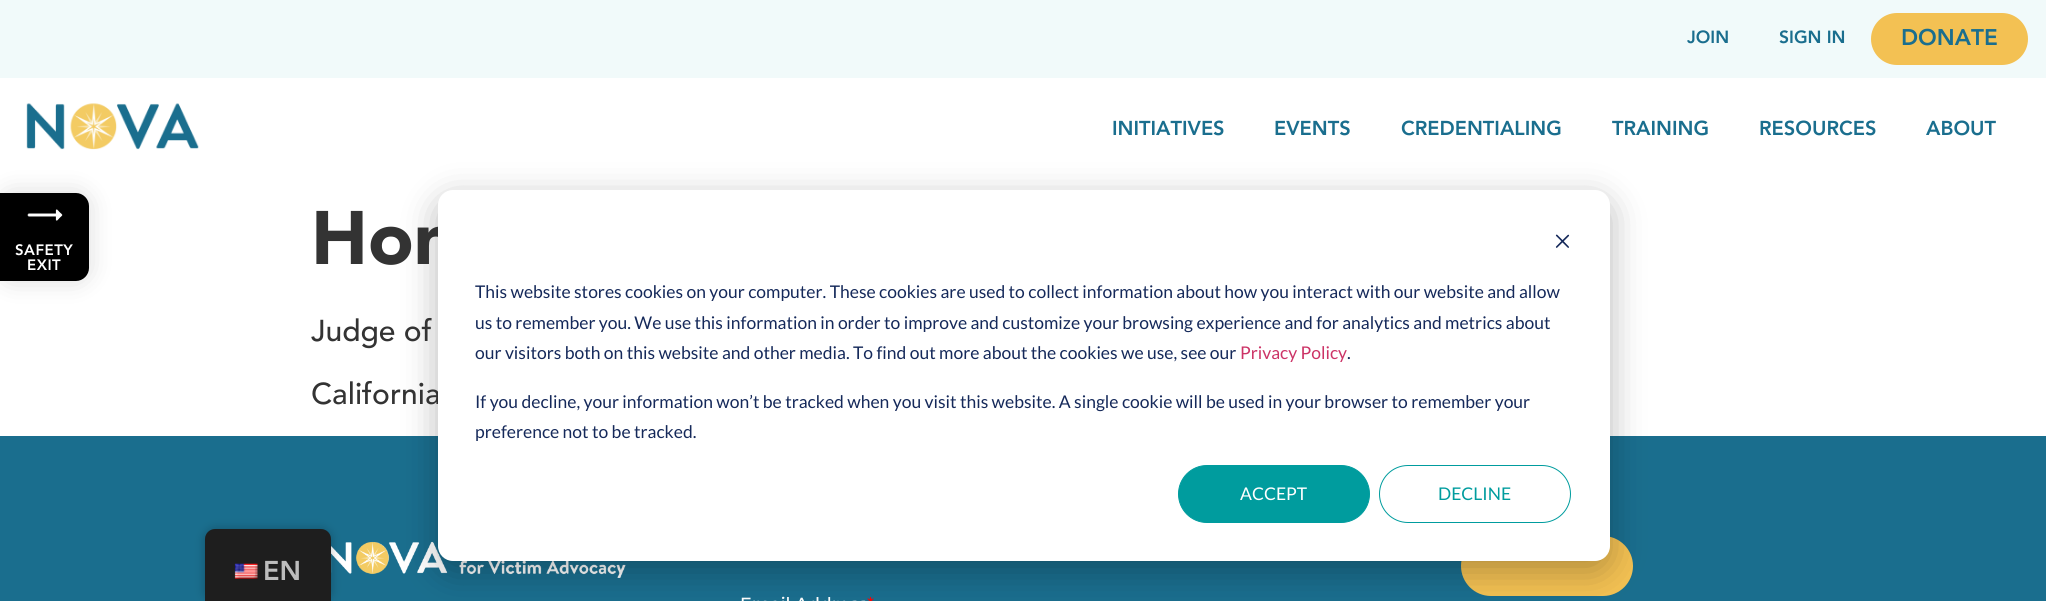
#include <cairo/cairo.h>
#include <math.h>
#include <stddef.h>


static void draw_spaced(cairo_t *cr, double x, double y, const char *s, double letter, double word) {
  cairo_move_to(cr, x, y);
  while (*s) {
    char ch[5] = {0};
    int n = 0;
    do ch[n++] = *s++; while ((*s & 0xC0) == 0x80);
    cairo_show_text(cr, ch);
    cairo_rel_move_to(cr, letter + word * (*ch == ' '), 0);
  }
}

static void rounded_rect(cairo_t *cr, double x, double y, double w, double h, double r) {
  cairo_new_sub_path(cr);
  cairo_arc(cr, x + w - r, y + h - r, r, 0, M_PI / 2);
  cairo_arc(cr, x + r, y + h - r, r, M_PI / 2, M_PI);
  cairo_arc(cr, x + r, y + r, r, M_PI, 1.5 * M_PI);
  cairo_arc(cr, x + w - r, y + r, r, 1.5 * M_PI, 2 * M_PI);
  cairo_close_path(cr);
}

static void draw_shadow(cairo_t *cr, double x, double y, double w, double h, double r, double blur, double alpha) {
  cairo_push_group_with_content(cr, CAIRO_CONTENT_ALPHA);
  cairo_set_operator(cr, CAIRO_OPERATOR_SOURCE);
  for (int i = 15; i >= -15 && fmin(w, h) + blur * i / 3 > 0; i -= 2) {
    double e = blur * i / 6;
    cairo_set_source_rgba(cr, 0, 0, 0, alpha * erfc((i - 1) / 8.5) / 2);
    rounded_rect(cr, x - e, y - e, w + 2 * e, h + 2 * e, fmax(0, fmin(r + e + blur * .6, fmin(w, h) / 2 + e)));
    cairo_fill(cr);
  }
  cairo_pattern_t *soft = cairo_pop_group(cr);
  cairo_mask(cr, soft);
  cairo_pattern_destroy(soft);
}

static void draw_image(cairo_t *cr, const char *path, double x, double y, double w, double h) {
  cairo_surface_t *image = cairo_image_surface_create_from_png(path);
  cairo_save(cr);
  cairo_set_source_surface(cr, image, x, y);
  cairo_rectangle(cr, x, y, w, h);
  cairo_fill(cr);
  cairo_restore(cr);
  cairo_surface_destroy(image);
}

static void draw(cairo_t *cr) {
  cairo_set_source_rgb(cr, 1, 1, 1);
  cairo_paint(cr);
  cairo_set_source_rgb(cr, 241 / 255.0, 250 / 255.0, 250 / 255.0);
  cairo_rectangle(cr, 0, 0, 2046, 78);
  cairo_fill(cr);
  cairo_set_source_rgb(cr, 243 / 255.0, 193 / 255.0, 83 / 255.0);
  rounded_rect(cr, 1871, 13, 157, 52, 26);
  cairo_fill(cr);
  draw_image(cr, "images/1.png", 26, 103, 173, 47);
  cairo_set_source_rgb(cr, 0, 0, 0);
  draw_shadow(cr, 0, 193, 89, 88, 13, 12.5, 0.14);
  cairo_set_source_rgb(cr, 0, 0, 0);
  cairo_new_path(cr);
  cairo_move_to(cr, 0, 193);
  cairo_line_to(cr, 76, 193);
  cairo_curve_to(cr, 83, 193, 89, 199, 89, 206);
  cairo_line_to(cr, 89, 268);
  cairo_curve_to(cr, 89, 275, 83, 281, 76, 281);
  cairo_line_to(cr, 0, 281);
  cairo_close_path(cr);
  cairo_fill(cr);
  draw_image(cr, "images/2.png", 27, 209, 36, 12);
  cairo_set_source_rgb(cr, 26 / 255.0, 110 / 255.0, 142 / 255.0);
  cairo_rectangle(cr, 0, 436, 2046, 165);
  cairo_fill(cr);
  draw_image(cr, "images/4.png", 331, 541, 295, 37);
  cairo_set_source_rgb(cr, 243 / 255.0, 193 / 255.0, 83 / 255.0);
  rounded_rect(cr, 1461, 536, 172, 60, 30);
  cairo_fill(cr);
  draw_image(cr, "images/5.png", 741, 596, 133, 5);
  cairo_set_source_rgb(cr, 0, 0, 0);
  draw_shadow(cr, 438, 200, 1172, 371, 15, 17.5, 0.28);
  draw_shadow(cr, 205, 529, 126, 72, 10, 5, 0.25);
  cairo_set_source_rgb(cr, 30 / 255.0, 30 / 255.0, 30 / 255.0);
  cairo_new_path(cr);
  cairo_move_to(cr, 215, 529);
  cairo_line_to(cr, 321, 529);
  cairo_curve_to(cr, 326.5, 529, 331, 533.5, 331, 539);
  cairo_line_to(cr, 331, 601);
  cairo_line_to(cr, 205, 601);
  cairo_line_to(cr, 205, 539);
  cairo_curve_to(cr, 205, 533.5, 209.5, 529, 215, 529);
  cairo_close_path(cr);
  cairo_fill(cr);
  draw_image(cr, "images/6.png", 234, 563, 24, 16);
  cairo_select_font_face(cr, "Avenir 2 Black", CAIRO_FONT_SLANT_NORMAL, CAIRO_FONT_WEIGHT_NORMAL);
  cairo_set_font_size(cr, 17.5);
  cairo_set_source_rgb(cr, 26 / 255.0, 110 / 255.0, 142 / 255.0);
  cairo_move_to(cr, 1687, 43);
  cairo_show_text(cr, "JOIN");
  cairo_move_to(cr, 1779, 43);
  cairo_show_text(cr, "SIGN IN");
  cairo_set_font_size(cr, 22.5);
  cairo_move_to(cr, 1901, 45);
  cairo_show_text(cr, "DONATE");
  cairo_set_font_size(cr, 20);
  cairo_move_to(cr, 1112, 135);
  cairo_show_text(cr, "INITIATIVES");
  cairo_move_to(cr, 1274, 135);
  cairo_show_text(cr, "EVENTS");
  cairo_move_to(cr, 1401, 135);
  cairo_show_text(cr, "CREDENTIALING");
  cairo_move_to(cr, 1612, 135);
  cairo_show_text(cr, "TRAINING");
  cairo_move_to(cr, 1759, 135);
  cairo_show_text(cr, "RESOURCES");
  cairo_move_to(cr, 1926, 135);
  cairo_show_text(cr, "ABOUT");
  cairo_set_font_size(cr, 15);
  cairo_set_source_rgb(cr, 1, 1, 1);
  draw_spaced(cr, 15, 255, "SAFETY", 0.5, 0);
  draw_spaced(cr, 27, 270, "EXIT", 0.5, 0);
  cairo_select_font_face(cr, "Avenir Black", CAIRO_FONT_SLANT_NORMAL, CAIRO_FONT_WEIGHT_NORMAL);
  cairo_set_font_size(cr, 75);
  cairo_set_source_rgb(cr, 51 / 255.0, 51 / 255.0, 51 / 255.0);
  cairo_move_to(cr, 311, 264);
  cairo_show_text(cr, "Hon");
  cairo_select_font_face(cr, "Avenir Medium", CAIRO_FONT_SLANT_NORMAL, CAIRO_FONT_WEIGHT_NORMAL);
  cairo_set_font_size(cr, 30);
  cairo_move_to(cr, 311, 341);
  cairo_show_text(cr, "Judge of");
  cairo_move_to(cr, 311, 404);
  cairo_show_text(cr, "California");
  cairo_set_source_rgb(cr, 1, 1, 1);
  rounded_rect(cr, 438, 190, 1172, 371, 15);
  cairo_fill(cr);
  draw_image(cr, "images/3.png", 1555, 234, 15, 14);
  cairo_select_font_face(cr, "Lato", CAIRO_FONT_SLANT_NORMAL, CAIRO_FONT_WEIGHT_NORMAL);
  cairo_set_font_size(cr, 17.5);
  cairo_set_source_rgb(cr, 21 / 255.0, 41 / 255.0, 90 / 255.0);
  cairo_move_to(cr, 475, 298);
  cairo_show_text(cr, "This website stores cookies on your computer. These cookies are used to collect information about how you interact with our website and allow");
  cairo_move_to(cr, 475, 329);
  cairo_show_text(cr, "us to remember you. We use this information in order to improve and customize your browsing experience and for analytics and metrics about");
  cairo_move_to(cr, 475, 359);
  cairo_show_text(cr, "our visitors both on this website and other media. To find out more about the cookies we use, see our");
  cairo_set_source_rgb(cr, 204 / 255.0, 51 / 255.0, 102 / 255.0);
  cairo_move_to(cr, 1240, 359);
  cairo_show_text(cr, "Privacy Policy");
  cairo_set_source_rgb(cr, 21 / 255.0, 41 / 255.0, 90 / 255.0);
  cairo_move_to(cr, 1347, 359);
  cairo_show_text(cr, ".");
  cairo_move_to(cr, 475, 408);
  cairo_show_text(cr, "If you decline, your information won’t be tracked when you visit this website. A single cookie will be used in your browser to remember your");
  cairo_move_to(cr, 475, 438);
  cairo_show_text(cr, "preference not to be tracked.");
  cairo_set_source_rgb(cr, 0, 156 / 255.0, 158 / 255.0);
  rounded_rect(cr, 1178.5, 465.5, 191, 57, 28.5);
  cairo_fill_preserve(cr);
  cairo_set_line_width(cr, 1);
  cairo_stroke(cr);
  cairo_set_source_rgb(cr, 1, 1, 1);
  cairo_move_to(cr, 1240, 500);
  cairo_show_text(cr, "ACCEPT");
  rounded_rect(cr, 1379.5, 465.5, 191, 57, 28.5);
  cairo_set_source_rgb(cr, 0, 156 / 255.0, 158 / 255.0);
  cairo_stroke(cr);
  cairo_move_to(cr, 1438, 500);
  cairo_show_text(cr, "DECLINE");
  cairo_select_font_face(cr, "Avenir 2 Black", CAIRO_FONT_SLANT_NORMAL, CAIRO_FONT_WEIGHT_NORMAL);
  cairo_set_font_size(cr, 27);
  cairo_set_source_rgb(cr, 189 / 255.0, 189 / 255.0, 189 / 255.0);
  cairo_move_to(cr, 263, 580);
  cairo_show_text(cr, "EN");
}

int main(void) {
  cairo_surface_t *surface = cairo_image_surface_create(CAIRO_FORMAT_RGB24, 2046, 601);
  cairo_t *cr = cairo_create(surface);
  cairo_font_options_t *options = cairo_font_options_create();
  cairo_font_options_set_hint_metrics(options, CAIRO_HINT_METRICS_OFF);
  cairo_font_options_set_hint_style(options, CAIRO_HINT_STYLE_NONE);
  cairo_set_font_options(cr, options);
  cairo_set_miter_limit(cr, 4);
  draw(cr);
  cairo_surface_write_to_png(surface, "out.png");
  cairo_font_options_destroy(options);
  cairo_destroy(cr);
  cairo_surface_destroy(surface);
  return 0;
}
